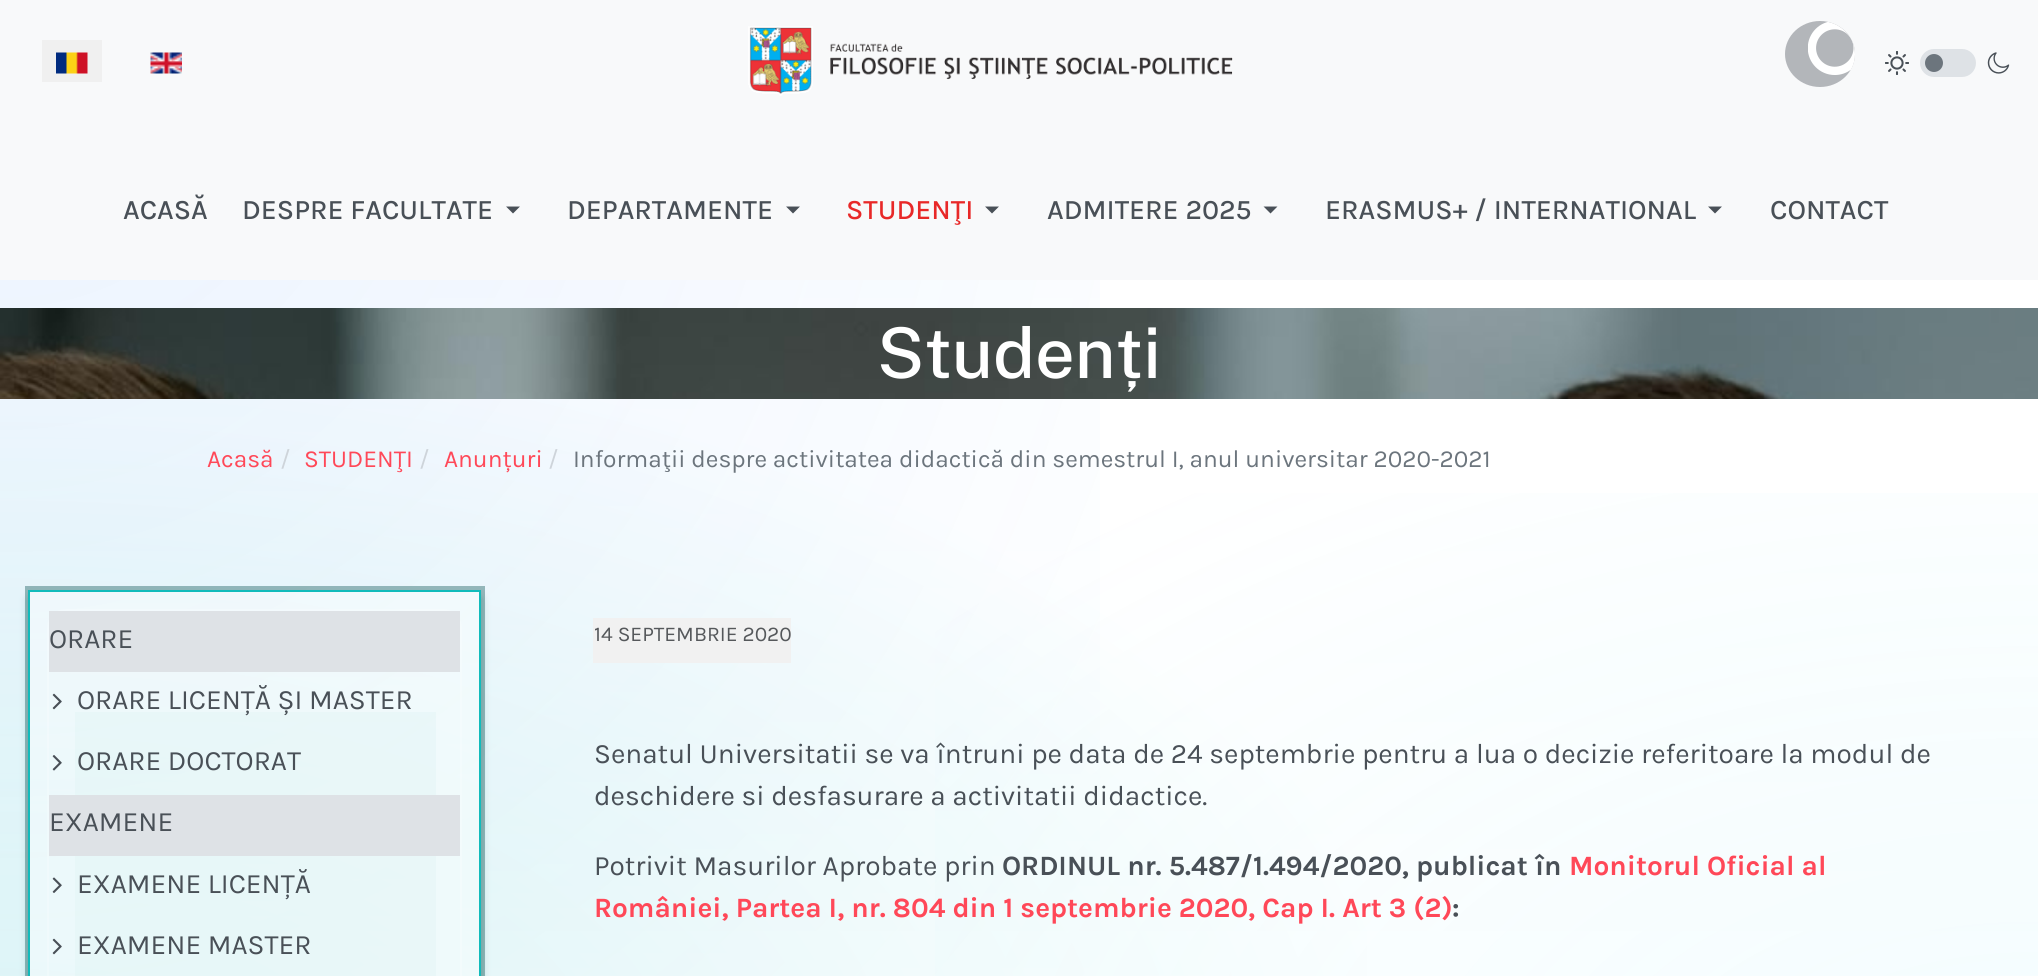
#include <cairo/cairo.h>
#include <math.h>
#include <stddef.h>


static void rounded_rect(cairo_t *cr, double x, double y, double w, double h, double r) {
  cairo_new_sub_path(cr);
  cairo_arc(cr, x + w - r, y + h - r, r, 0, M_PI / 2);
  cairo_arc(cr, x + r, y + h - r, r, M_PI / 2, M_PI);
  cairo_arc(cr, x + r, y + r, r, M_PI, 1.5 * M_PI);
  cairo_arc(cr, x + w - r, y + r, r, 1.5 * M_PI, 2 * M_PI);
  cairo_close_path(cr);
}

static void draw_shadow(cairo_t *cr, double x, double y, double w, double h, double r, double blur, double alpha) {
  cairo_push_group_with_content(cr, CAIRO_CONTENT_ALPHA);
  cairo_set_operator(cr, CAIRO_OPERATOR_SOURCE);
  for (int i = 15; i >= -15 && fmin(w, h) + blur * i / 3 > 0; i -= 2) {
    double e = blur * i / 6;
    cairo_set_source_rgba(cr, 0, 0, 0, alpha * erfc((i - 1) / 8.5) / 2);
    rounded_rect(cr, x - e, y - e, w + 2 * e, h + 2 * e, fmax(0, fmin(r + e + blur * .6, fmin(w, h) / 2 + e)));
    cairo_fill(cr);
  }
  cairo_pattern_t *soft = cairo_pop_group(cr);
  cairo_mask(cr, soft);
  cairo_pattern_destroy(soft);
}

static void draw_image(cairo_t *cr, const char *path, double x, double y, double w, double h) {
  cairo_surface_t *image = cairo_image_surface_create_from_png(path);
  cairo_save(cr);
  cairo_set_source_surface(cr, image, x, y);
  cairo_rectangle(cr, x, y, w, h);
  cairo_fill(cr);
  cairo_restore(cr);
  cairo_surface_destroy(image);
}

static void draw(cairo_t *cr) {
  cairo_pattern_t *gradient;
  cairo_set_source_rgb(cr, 1, 1, 1);
  cairo_paint(cr);
  gradient = cairo_pattern_create_radial(0, 0, 0, 0, 0, 1);
  cairo_pattern_set_matrix(gradient, &(cairo_matrix_t){1.0 / 2883, 0, 0, 1.0 / 1564, -1.0 * 0 / 2883, -1.0 * 1106 / 1564});
  cairo_pattern_add_color_stop_rgba(gradient, 0, 182 / 255.0, 235 / 255.0, 235 / 255.0, 1);
  cairo_pattern_add_color_stop_rgba(gradient, 0.5, 1, 1, 1, 1);
  cairo_set_source(cr, gradient);
  cairo_pattern_destroy(gradient);
  cairo_rectangle(cr, 0, 351, 1367, 625);
  cairo_fill(cr);
  gradient = cairo_pattern_create_radial(0, 0, 0, 0, 0, 1);
  cairo_pattern_set_matrix(gradient, &(cairo_matrix_t){1.0 / 2883, 0, 0, 1.0 / 1564, -1.0 * 2039 / 2883, -1.0 * 1106 / 1564});
  cairo_pattern_add_color_stop_rgba(gradient, 0, 13 / 255.0, 202 / 255.0, 240 / 255.0, 0.1);
  cairo_pattern_add_color_stop_rgba(gradient, 0.5, 13 / 255.0, 202 / 255.0, 240 / 255.0, 0);
  cairo_set_source(cr, gradient);
  cairo_pattern_destroy(gradient);
  cairo_rectangle(cr, 935, 493, 1103, 483);
  cairo_fill(cr);
  gradient = cairo_pattern_create_radial(0, 0, 0, 0, 0, 1);
  cairo_pattern_set_matrix(gradient, &(cairo_matrix_t){1.0 / 2883, 0, 0, 1.0 / 3128, -1.0 * 0 / 2883, -1.0 * 0 / 3128});
  cairo_pattern_add_color_stop_rgba(gradient, 0, 13 / 255.0, 110 / 255.0, 253 / 255.0, 0.1);
  cairo_pattern_add_color_stop_rgba(gradient, 0.5, 13 / 255.0, 110 / 255.0, 253 / 255.0, 0);
  cairo_set_source(cr, gradient);
  cairo_pattern_destroy(gradient);
  cairo_rectangle(cr, 0, 280, 1100, 696);
  cairo_fill(cr);
  gradient = cairo_pattern_create_linear(1019, 0, 1019, 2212);
  cairo_pattern_add_color_stop_rgba(gradient, 0, 1, 1, 1, 0.01);
  cairo_pattern_add_color_stop_rgba(gradient, 0.85, 1, 1, 1, 1);
  cairo_set_source(cr, gradient);
  cairo_pattern_destroy(gradient);
  cairo_rectangle(cr, 0, 280, 2038, 696);
  cairo_fill(cr);
  cairo_set_source_rgb(cr, 248 / 255.0, 249 / 255.0, 250 / 255.0);
  cairo_rectangle(cr, 0, 0, 2038, 280);
  cairo_fill(cr);
  cairo_set_source_rgb(cr, 240 / 255.0, 240 / 255.0, 240 / 255.0);
  cairo_rectangle(cr, 42, 40, 60, 42);
  cairo_fill(cr);
  draw_image(cr, "images/1.png", 56, 52, 32, 22);
  draw_image(cr, "images/2.png", 150, 52, 32, 22);
  draw_image(cr, "images/3.png", 748, 26, 485, 70);
  cairo_set_source_rgb(cr, 179 / 255.0, 182 / 255.0, 186 / 255.0);
  cairo_new_path(cr);
  cairo_move_to(cr, 1820, 21);
  cairo_curve_to(cr, 1839.5, 21, 1855, 36, 1855, 54);
  cairo_curve_to(cr, 1855, 72, 1839.5, 87, 1820, 87);
  cairo_curve_to(cr, 1800.5, 87, 1785, 72, 1785, 54);
  cairo_curve_to(cr, 1785, 36, 1800.5, 21, 1820, 21);
  cairo_close_path(cr);
  cairo_fill(cr);
  draw_image(cr, "images/4.png", 1808, 22, 47, 53);
  draw_image(cr, "images/5.png", 1885, 51, 24, 24);
  cairo_set_source_rgb(cr, 222 / 255.0, 226 / 255.0, 230 / 255.0);
  rounded_rect(cr, 1920, 49, 56, 28, 14);
  cairo_fill(cr);
  cairo_set_source_rgb(cr, 108 / 255.0, 117 / 255.0, 125 / 255.0);
  cairo_arc(cr, 1934, 63, 9, 0, 2 * M_PI);
  cairo_fill(cr);
  draw_image(cr, "images/6.png", 1987, 52, 23, 22);
  cairo_set_source_rgb(cr, 73 / 255.0, 80 / 255.0, 87 / 255.0);
  cairo_new_path(cr);
  cairo_move_to(cr, 506, 206.5);
  cairo_line_to(cr, 520, 206.5);
  cairo_line_to(cr, 513, 213.5);
  cairo_close_path(cr);
  cairo_fill(cr);
  cairo_new_path(cr);
  cairo_move_to(cr, 786, 206.5);
  cairo_line_to(cr, 800, 206.5);
  cairo_line_to(cr, 793, 213.5);
  cairo_close_path(cr);
  cairo_fill(cr);
  cairo_new_path(cr);
  cairo_move_to(cr, 985, 206.5);
  cairo_line_to(cr, 999, 206.5);
  cairo_line_to(cr, 992, 213.5);
  cairo_close_path(cr);
  cairo_fill(cr);
  cairo_new_path(cr);
  cairo_move_to(cr, 1263.5, 206.5);
  cairo_line_to(cr, 1277.5, 206.5);
  cairo_line_to(cr, 1270.5, 213.5);
  cairo_close_path(cr);
  cairo_fill(cr);
  cairo_new_path(cr);
  cairo_move_to(cr, 1708, 206.5);
  cairo_line_to(cr, 1722, 206.5);
  cairo_line_to(cr, 1715, 213.5);
  cairo_close_path(cr);
  cairo_fill(cr);
  draw_image(cr, "images/7.png", 0, 308, 2038, 91);
  cairo_save(cr);
  cairo_set_fill_rule(cr, CAIRO_FILL_RULE_EVEN_ODD);
  cairo_new_path(cr);
  cairo_move_to(cr, 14, 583);
  cairo_line_to(cr, 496, 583);
  cairo_line_to(cr, 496, 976);
  cairo_line_to(cr, 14, 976);
  cairo_close_path(cr);
  cairo_move_to(cr, 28, 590);
  cairo_line_to(cr, 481, 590);
  cairo_line_to(cr, 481, 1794);
  cairo_line_to(cr, 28, 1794);
  cairo_close_path(cr);
  cairo_clip(cr);
  cairo_set_source_rgb(cr, 102 / 255.0, 165 / 255.0, 165 / 255.0);
  draw_shadow(cr, 30, 599, 450, 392, 0, 5, 0.65);
  cairo_restore(cr);
  cairo_rectangle(cr, 27, 588, 456, 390);
  cairo_set_source_rgba(cr, 17 / 255.0, 87 / 255.0, 87 / 255.0, 0.4);
  cairo_set_line_width(cr, 4);
  cairo_stroke(cr);
  cairo_set_source_rgba(cr, 1, 1, 1, 0.4);
  cairo_rectangle(cr, 29, 591, 451, 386);
  cairo_fill_preserve(cr);
  cairo_set_source_rgb(cr, 17 / 255.0, 187 / 255.0, 187 / 255.0);
  cairo_set_line_width(cr, 2);
  cairo_stroke(cr);
  cairo_set_source_rgba(cr, 217 / 255.0, 241 / 255.0, 240 / 255.0, 0.3);
  cairo_rectangle(cr, 75, 712, 361, 264);
  cairo_fill(cr);
  rounded_rect(cr, 48, 610, 413, 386, 18);
  cairo_set_source_rgba(cr, 1, 1, 1, 0.22);
  cairo_stroke(cr);
  cairo_set_source_rgb(cr, 222 / 255.0, 226 / 255.0, 230 / 255.0);
  cairo_rectangle(cr, 49, 611, 411, 61);
  cairo_fill(cr);
  draw_image(cr, "images/8.png", 52, 693, 10, 17);
  draw_image(cr, "images/9.png", 52, 755, 10, 16);
  cairo_rectangle(cr, 49, 795, 411, 61);
  cairo_fill(cr);
  draw_image(cr, "images/10.png", 52, 877, 10, 16);
  draw_image(cr, "images/11.png", 52, 938, 10, 17);
  cairo_set_source_rgb(cr, 241 / 255.0, 241 / 255.0, 241 / 255.0);
  cairo_rectangle(cr, 593, 618, 198, 45);
  cairo_fill(cr);
  cairo_select_font_face(cr, "Karla Medium", CAIRO_FONT_SLANT_NORMAL, CAIRO_FONT_WEIGHT_NORMAL);
  cairo_set_font_size(cr, 28);
  cairo_set_source_rgb(cr, 73 / 255.0, 80 / 255.0, 87 / 255.0);
  cairo_move_to(cr, 123, 219);
  cairo_show_text(cr, "ACASĂ");
  cairo_move_to(cr, 242, 219);
  cairo_show_text(cr, "DESPRE FACULTATE");
  cairo_move_to(cr, 567, 219);
  cairo_show_text(cr, "DEPARTAMENTE");
  cairo_set_source_rgb(cr, 232 / 255.0, 40 / 255.0, 40 / 255.0);
  cairo_move_to(cr, 846, 219);
  cairo_show_text(cr, "STUDENŢI");
  cairo_set_source_rgb(cr, 73 / 255.0, 80 / 255.0, 87 / 255.0);
  cairo_move_to(cr, 1047, 219);
  cairo_show_text(cr, "ADMITERE 2025");
  cairo_move_to(cr, 1325, 219);
  cairo_show_text(cr, "ERASMUS+ / INTERNATIONAL");
  cairo_move_to(cr, 1770, 219);
  cairo_show_text(cr, "CONTACT");
  cairo_select_font_face(cr, "Public Sans Medium", CAIRO_FONT_SLANT_NORMAL, CAIRO_FONT_WEIGHT_NORMAL);
  cairo_set_font_size(cr, 70);
  cairo_set_source_rgb(cr, 1, 1, 1);
  cairo_move_to(cr, 877, 378);
  cairo_show_text(cr, "Studenți");
  cairo_select_font_face(cr, "Karla", CAIRO_FONT_SLANT_NORMAL, CAIRO_FONT_WEIGHT_NORMAL);
  cairo_set_font_size(cr, 24.5);
  cairo_set_source_rgb(cr, 1, 72 / 255.0, 88 / 255.0);
  cairo_move_to(cr, 207, 467);
  cairo_show_text(cr, "Acasă");
  cairo_set_source_rgb(cr, 206 / 255.0, 212 / 255.0, 218 / 255.0);
  cairo_move_to(cr, 280, 467);
  cairo_show_text(cr, "/");
  cairo_set_source_rgb(cr, 1, 72 / 255.0, 88 / 255.0);
  cairo_move_to(cr, 304, 467);
  cairo_show_text(cr, "STUDENŢI");
  cairo_set_source_rgb(cr, 206 / 255.0, 212 / 255.0, 218 / 255.0);
  cairo_move_to(cr, 419, 467);
  cairo_show_text(cr, "/");
  cairo_set_source_rgb(cr, 1, 72 / 255.0, 88 / 255.0);
  cairo_move_to(cr, 444, 467);
  cairo_show_text(cr, "Anunțuri");
  cairo_set_source_rgb(cr, 206 / 255.0, 212 / 255.0, 218 / 255.0);
  cairo_move_to(cr, 548, 467);
  cairo_show_text(cr, "/");
  cairo_set_source_rgb(cr, 108 / 255.0, 117 / 255.0, 125 / 255.0);
  cairo_move_to(cr, 573, 467);
  cairo_show_text(cr, "Informaţii despre activitatea didactică din semestrul I, anul universitar 2020-2021");
  cairo_set_font_size(cr, 28);
  cairo_set_source_rgb(cr, 73 / 255.0, 80 / 255.0, 87 / 255.0);
  cairo_move_to(cr, 49, 648);
  cairo_show_text(cr, "ORARE");
  cairo_move_to(cr, 77, 709);
  cairo_show_text(cr, "ORARE LICENȚĂ ȘI MASTER");
  cairo_move_to(cr, 77, 770);
  cairo_show_text(cr, "ORARE DOCTORAT");
  cairo_move_to(cr, 49, 831);
  cairo_show_text(cr, "EXAMENE");
  cairo_move_to(cr, 77, 893);
  cairo_show_text(cr, "EXAMENE LICENȚĂ");
  cairo_move_to(cr, 77, 954);
  cairo_show_text(cr, "EXAMENE MASTER");
  cairo_set_font_size(cr, 21);
  cairo_set_source_rgb(cr, 85 / 255.0, 88 / 255.0, 91 / 255.0);
  cairo_move_to(cr, 594, 641);
  cairo_show_text(cr, "14 SEPTEMBRIE 2020");
  cairo_set_font_size(cr, 28);
  cairo_set_source_rgb(cr, 73 / 255.0, 80 / 255.0, 87 / 255.0);
  cairo_move_to(cr, 594, 763);
  cairo_show_text(cr, "Senatul Universitatii se va întruni pe data de 24 septembrie pentru a lua o decizie referitoare la modul de");
  cairo_move_to(cr, 594, 805);
  cairo_show_text(cr, "deschidere si desfasurare a activitatii didactice.");
  cairo_move_to(cr, 594, 875);
  cairo_show_text(cr, "Potrivit Masurilor Aprobate prin");
  cairo_select_font_face(cr, "Karla", CAIRO_FONT_SLANT_NORMAL, CAIRO_FONT_WEIGHT_BOLD);
  cairo_move_to(cr, 1002, 875);
  cairo_show_text(cr, "ORDINUL nr. 5.487/1.494/2020, publicat în");
  cairo_set_source_rgb(cr, 1, 72 / 255.0, 88 / 255.0);
  cairo_move_to(cr, 1569, 875);
  cairo_show_text(cr, "Monitorul Oficial al");
  cairo_move_to(cr, 594, 917);
  cairo_show_text(cr, "României, Partea I, nr. 804 din 1 septembrie 2020, Cap I. Art 3 (2)");
  cairo_set_source_rgb(cr, 73 / 255.0, 80 / 255.0, 87 / 255.0);
  cairo_move_to(cr, 1452, 917);
  cairo_show_text(cr, ":");
}

int main(void) {
  cairo_surface_t *surface = cairo_image_surface_create(CAIRO_FORMAT_RGB24, 2038, 976);
  cairo_t *cr = cairo_create(surface);
  cairo_font_options_t *options = cairo_font_options_create();
  cairo_font_options_set_hint_metrics(options, CAIRO_HINT_METRICS_OFF);
  cairo_font_options_set_hint_style(options, CAIRO_HINT_STYLE_NONE);
  cairo_set_font_options(cr, options);
  cairo_set_miter_limit(cr, 4);
  draw(cr);
  cairo_surface_write_to_png(surface, "out.png");
  cairo_font_options_destroy(options);
  cairo_destroy(cr);
  cairo_surface_destroy(surface);
  return 0;
}
